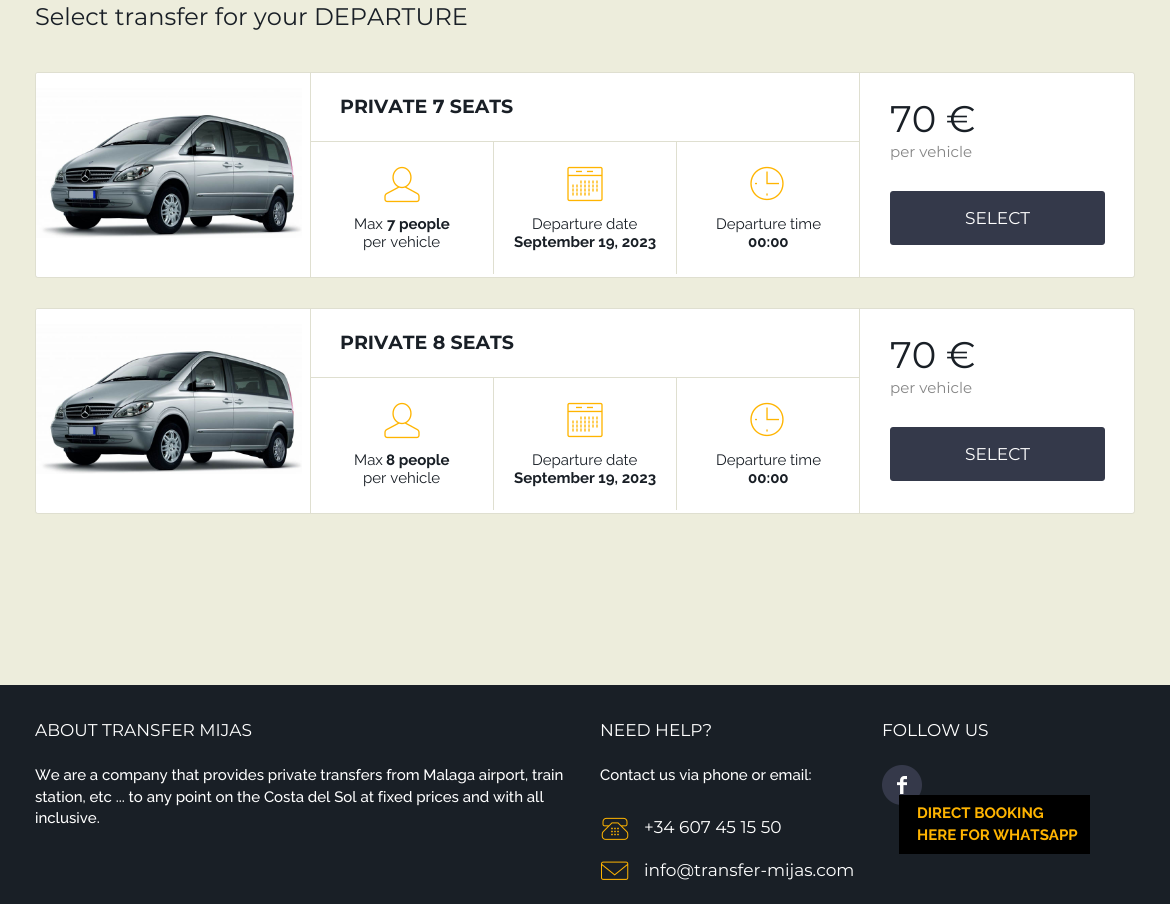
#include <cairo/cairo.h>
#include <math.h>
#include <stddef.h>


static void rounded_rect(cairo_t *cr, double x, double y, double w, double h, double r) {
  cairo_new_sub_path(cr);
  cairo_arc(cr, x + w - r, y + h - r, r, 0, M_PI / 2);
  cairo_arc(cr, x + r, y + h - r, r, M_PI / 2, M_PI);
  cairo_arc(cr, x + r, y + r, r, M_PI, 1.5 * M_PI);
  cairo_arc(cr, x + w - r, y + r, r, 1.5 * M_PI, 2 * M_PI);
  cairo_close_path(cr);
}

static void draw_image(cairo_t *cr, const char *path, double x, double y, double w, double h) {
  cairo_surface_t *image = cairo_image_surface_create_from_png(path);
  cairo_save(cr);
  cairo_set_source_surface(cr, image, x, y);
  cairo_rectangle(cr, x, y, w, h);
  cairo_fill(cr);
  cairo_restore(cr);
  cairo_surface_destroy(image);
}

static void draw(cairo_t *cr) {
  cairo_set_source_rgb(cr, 237 / 255.0, 237 / 255.0, 220 / 255.0);
  cairo_paint(cr);
  cairo_set_source_rgb(cr, 1, 1, 1);
  rounded_rect(cr, 35.5, 72.5, 1099, 205, 2.5);
  cairo_fill_preserve(cr);
  cairo_set_source_rgb(cr, 223 / 255.0, 223 / 255.0, 208 / 255.0);
  cairo_set_line_width(cr, 1);
  cairo_stroke(cr);
  draw_image(cr, "images/1.png", 36, 73, 266, 165);
  cairo_rectangle(cr, 859, 72, 1, 206);
  cairo_fill(cr);
  cairo_rectangle(cr, 310, 72, 1, 206);
  cairo_fill(cr);
  cairo_rectangle(cr, 310, 141, 550, 1);
  cairo_fill(cr);
  draw_image(cr, "images/2.png", 384, 166, 36, 37);
  cairo_rectangle(cr, 676, 142, 1, 132);
  cairo_fill(cr);
  cairo_rectangle(cr, 493, 142, 1, 132);
  cairo_fill(cr);
  draw_image(cr, "images/3.png", 567, 166, 36, 36);
  draw_image(cr, "images/4.png", 750, 166, 34, 35);
  cairo_set_source_rgb(cr, 52 / 255.0, 57 / 255.0, 74 / 255.0);
  rounded_rect(cr, 890, 191, 215, 54, 3);
  cairo_fill(cr);
  cairo_set_source_rgb(cr, 1, 1, 1);
  rounded_rect(cr, 35.5, 308.5, 1099, 205, 2.5);
  cairo_fill_preserve(cr);
  cairo_set_source_rgb(cr, 223 / 255.0, 223 / 255.0, 208 / 255.0);
  cairo_stroke(cr);
  draw_image(cr, "images/1.png", 36, 309, 266, 165);
  cairo_rectangle(cr, 859, 308, 1, 206);
  cairo_fill(cr);
  cairo_rectangle(cr, 310, 308, 1, 206);
  cairo_fill(cr);
  cairo_rectangle(cr, 310, 377, 550, 1);
  cairo_fill(cr);
  draw_image(cr, "images/2.png", 384, 402, 36, 37);
  cairo_rectangle(cr, 676, 378, 1, 132);
  cairo_fill(cr);
  cairo_rectangle(cr, 493, 378, 1, 132);
  cairo_fill(cr);
  draw_image(cr, "images/3.png", 567, 402, 36, 36);
  draw_image(cr, "images/4.png", 750, 402, 34, 35);
  cairo_set_source_rgb(cr, 52 / 255.0, 57 / 255.0, 74 / 255.0);
  rounded_rect(cr, 890, 427, 215, 54, 3);
  cairo_fill(cr);
  cairo_set_source_rgb(cr, 25 / 255.0, 31 / 255.0, 38 / 255.0);
  cairo_rectangle(cr, 0, 685, 1170, 219);
  cairo_fill(cr);
  cairo_set_source_rgb(cr, 53 / 255.0, 57 / 255.0, 74 / 255.0);
  cairo_arc(cr, 902, 785, 20, 0, 2 * M_PI);
  cairo_fill(cr);
  cairo_set_source_rgb(cr, 0, 0, 0);
  cairo_rectangle(cr, 899, 795, 191, 59);
  cairo_fill(cr);
  draw_image(cr, "images/5.png", 601, 817, 28, 23);
  draw_image(cr, "images/6.png", 601, 861, 28, 19);
  draw_image(cr, "images/7.png", 897, 776, 10, 18);
  cairo_select_font_face(cr, "Montserrat", CAIRO_FONT_SLANT_NORMAL, CAIRO_FONT_WEIGHT_NORMAL);
  cairo_set_font_size(cr, 24);
  cairo_set_source_rgb(cr, 25 / 255.0, 31 / 255.0, 38 / 255.0);
  cairo_move_to(cr, 35, 25);
  cairo_show_text(cr, "Select transfer for your DEPARTURE");
  cairo_select_font_face(cr, "Montserrat", CAIRO_FONT_SLANT_NORMAL, CAIRO_FONT_WEIGHT_BOLD);
  cairo_set_font_size(cr, 19);
  cairo_move_to(cr, 340, 113);
  cairo_show_text(cr, "PRIVATE 7 SEATS");
  cairo_select_font_face(cr, "Raleway", CAIRO_FONT_SLANT_NORMAL, CAIRO_FONT_WEIGHT_NORMAL);
  cairo_set_font_size(cr, 15);
  cairo_move_to(cr, 354, 229);
  cairo_show_text(cr, "Max");
  cairo_select_font_face(cr, "Raleway", CAIRO_FONT_SLANT_NORMAL, CAIRO_FONT_WEIGHT_BOLD);
  cairo_move_to(cr, 387, 229);
  cairo_show_text(cr, "7 people");
  cairo_select_font_face(cr, "Raleway", CAIRO_FONT_SLANT_NORMAL, CAIRO_FONT_WEIGHT_NORMAL);
  cairo_move_to(cr, 363, 247);
  cairo_show_text(cr, "per vehicle");
  cairo_move_to(cr, 532, 229);
  cairo_show_text(cr, "Departure date");
  cairo_select_font_face(cr, "Raleway", CAIRO_FONT_SLANT_NORMAL, CAIRO_FONT_WEIGHT_BOLD);
  cairo_move_to(cr, 514, 247);
  cairo_show_text(cr, "September 19, 2023");
  cairo_select_font_face(cr, "Raleway", CAIRO_FONT_SLANT_NORMAL, CAIRO_FONT_WEIGHT_NORMAL);
  cairo_move_to(cr, 716, 229);
  cairo_show_text(cr, "Departure time");
  cairo_select_font_face(cr, "Raleway", CAIRO_FONT_SLANT_NORMAL, CAIRO_FONT_WEIGHT_BOLD);
  cairo_move_to(cr, 748, 247);
  cairo_show_text(cr, "00:00");
  cairo_select_font_face(cr, "Montserrat", CAIRO_FONT_SLANT_NORMAL, CAIRO_FONT_WEIGHT_NORMAL);
  cairo_set_font_size(cr, 37);
  cairo_move_to(cr, 890, 132);
  cairo_show_text(cr, "70 €");
  cairo_set_font_size(cr, 15);
  cairo_set_source_rgb(cr, 133 / 255.0, 133 / 255.0, 133 / 255.0);
  cairo_move_to(cr, 890, 157);
  cairo_show_text(cr, "per vehicle");
  cairo_set_font_size(cr, 17);
  cairo_set_source_rgb(cr, 1, 1, 1);
  cairo_move_to(cr, 965, 224);
  cairo_show_text(cr, "SELECT");
  cairo_select_font_face(cr, "Montserrat", CAIRO_FONT_SLANT_NORMAL, CAIRO_FONT_WEIGHT_BOLD);
  cairo_set_font_size(cr, 19);
  cairo_set_source_rgb(cr, 25 / 255.0, 31 / 255.0, 38 / 255.0);
  cairo_move_to(cr, 340, 349);
  cairo_show_text(cr, "PRIVATE 8 SEATS");
  cairo_select_font_face(cr, "Raleway", CAIRO_FONT_SLANT_NORMAL, CAIRO_FONT_WEIGHT_NORMAL);
  cairo_set_font_size(cr, 15);
  cairo_move_to(cr, 354, 465);
  cairo_show_text(cr, "Max");
  cairo_select_font_face(cr, "Raleway", CAIRO_FONT_SLANT_NORMAL, CAIRO_FONT_WEIGHT_BOLD);
  cairo_move_to(cr, 386, 465);
  cairo_show_text(cr, "8 people");
  cairo_select_font_face(cr, "Raleway", CAIRO_FONT_SLANT_NORMAL, CAIRO_FONT_WEIGHT_NORMAL);
  cairo_move_to(cr, 363, 483);
  cairo_show_text(cr, "per vehicle");
  cairo_move_to(cr, 532, 465);
  cairo_show_text(cr, "Departure date");
  cairo_select_font_face(cr, "Raleway", CAIRO_FONT_SLANT_NORMAL, CAIRO_FONT_WEIGHT_BOLD);
  cairo_move_to(cr, 514, 483);
  cairo_show_text(cr, "September 19, 2023");
  cairo_select_font_face(cr, "Raleway", CAIRO_FONT_SLANT_NORMAL, CAIRO_FONT_WEIGHT_NORMAL);
  cairo_move_to(cr, 716, 465);
  cairo_show_text(cr, "Departure time");
  cairo_select_font_face(cr, "Raleway", CAIRO_FONT_SLANT_NORMAL, CAIRO_FONT_WEIGHT_BOLD);
  cairo_move_to(cr, 748, 483);
  cairo_show_text(cr, "00:00");
  cairo_select_font_face(cr, "Montserrat", CAIRO_FONT_SLANT_NORMAL, CAIRO_FONT_WEIGHT_NORMAL);
  cairo_set_font_size(cr, 37);
  cairo_move_to(cr, 890, 368);
  cairo_show_text(cr, "70 €");
  cairo_set_font_size(cr, 15);
  cairo_set_source_rgb(cr, 133 / 255.0, 133 / 255.0, 133 / 255.0);
  cairo_move_to(cr, 890, 393);
  cairo_show_text(cr, "per vehicle");
  cairo_set_font_size(cr, 17);
  cairo_set_source_rgb(cr, 1, 1, 1);
  cairo_move_to(cr, 965, 460);
  cairo_show_text(cr, "SELECT");
  cairo_select_font_face(cr, "Raleway", CAIRO_FONT_SLANT_NORMAL, CAIRO_FONT_WEIGHT_BOLD);
  cairo_set_font_size(cr, 15);
  cairo_set_source_rgb(cr, 1, 180 / 255.0, 0);
  cairo_move_to(cr, 917, 818);
  cairo_show_text(cr, "DIRECT BOOKING");
  cairo_move_to(cr, 917, 840);
  cairo_show_text(cr, "HERE FOR WHATSAPP");
  cairo_select_font_face(cr, "Montserrat", CAIRO_FONT_SLANT_NORMAL, CAIRO_FONT_WEIGHT_NORMAL);
  cairo_set_font_size(cr, 17);
  cairo_set_source_rgb(cr, 1, 1, 1);
  cairo_move_to(cr, 35, 736);
  cairo_show_text(cr, "ABOUT TRANSFER MIJAS");
  cairo_select_font_face(cr, "Raleway Medium", CAIRO_FONT_SLANT_NORMAL, CAIRO_FONT_WEIGHT_NORMAL);
  cairo_set_font_size(cr, 15);
  cairo_move_to(cr, 35, 780);
  cairo_show_text(cr, "We are a company that provides private transfers from Malaga airport, train");
  cairo_move_to(cr, 35, 802);
  cairo_show_text(cr, "station, etc ... to any point on the Costa del Sol at fixed prices and with all");
  cairo_move_to(cr, 35, 823);
  cairo_show_text(cr, "inclusive.");
  cairo_select_font_face(cr, "Montserrat", CAIRO_FONT_SLANT_NORMAL, CAIRO_FONT_WEIGHT_NORMAL);
  cairo_set_font_size(cr, 17);
  cairo_move_to(cr, 600, 736);
  cairo_show_text(cr, "NEED HELP?");
  cairo_select_font_face(cr, "Raleway Medium", CAIRO_FONT_SLANT_NORMAL, CAIRO_FONT_WEIGHT_NORMAL);
  cairo_set_font_size(cr, 15);
  cairo_move_to(cr, 600, 780);
  cairo_show_text(cr, "Contact us via phone or email:");
  cairo_select_font_face(cr, "Montserrat", CAIRO_FONT_SLANT_NORMAL, CAIRO_FONT_WEIGHT_NORMAL);
  cairo_set_font_size(cr, 17);
  cairo_move_to(cr, 644, 833);
  cairo_show_text(cr, "+34 607 45 15 50");
  cairo_move_to(cr, 644, 876);
  cairo_show_text(cr, "info@transfer-mijas.com");
  cairo_move_to(cr, 882, 736);
  cairo_show_text(cr, "FOLLOW US");
}

int main(void) {
  cairo_surface_t *surface = cairo_image_surface_create(CAIRO_FORMAT_RGB24, 1170, 904);
  cairo_t *cr = cairo_create(surface);
  cairo_font_options_t *options = cairo_font_options_create();
  cairo_font_options_set_hint_metrics(options, CAIRO_HINT_METRICS_OFF);
  cairo_font_options_set_hint_style(options, CAIRO_HINT_STYLE_NONE);
  cairo_set_font_options(cr, options);
  cairo_set_miter_limit(cr, 4);
  draw(cr);
  cairo_surface_write_to_png(surface, "out.png");
  cairo_font_options_destroy(options);
  cairo_destroy(cr);
  cairo_surface_destroy(surface);
  return 0;
}
